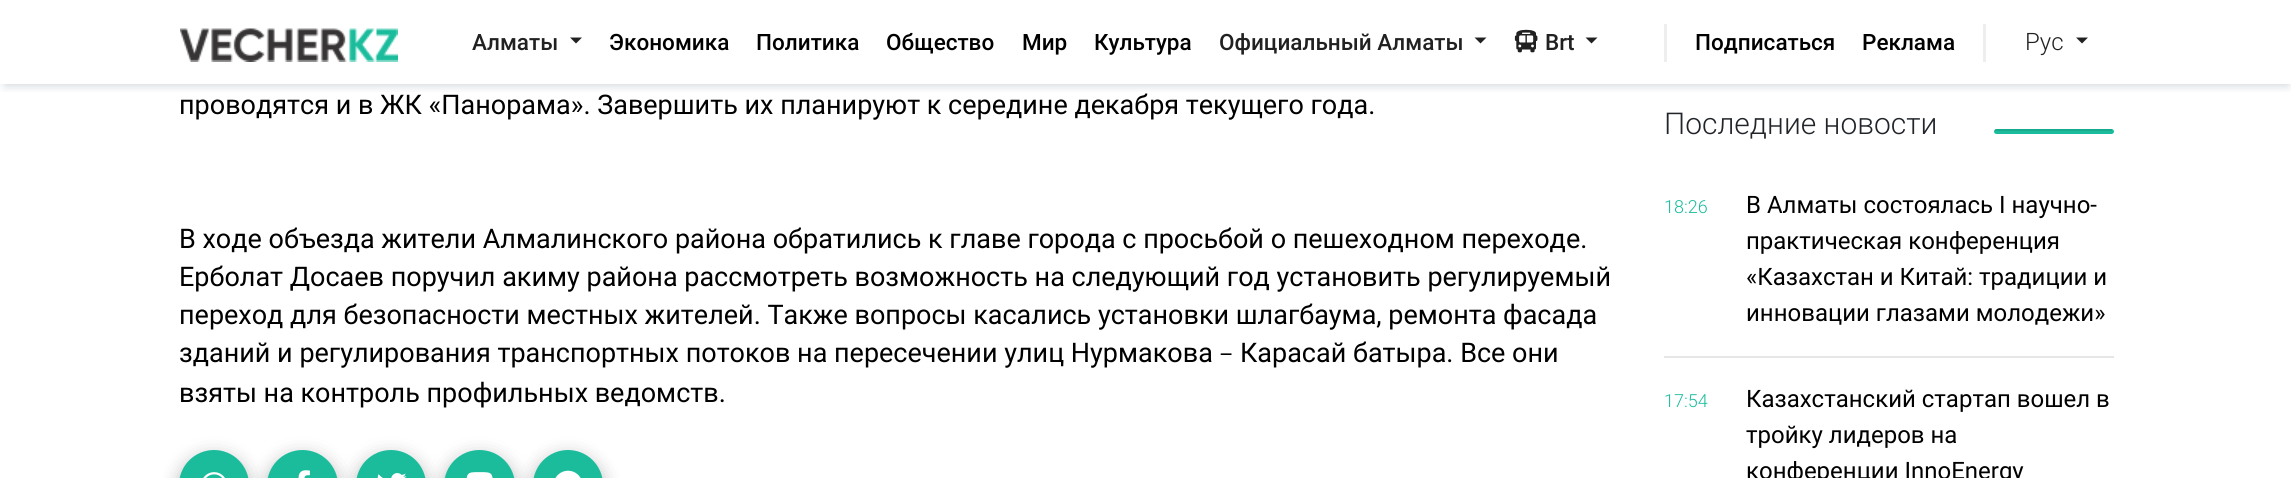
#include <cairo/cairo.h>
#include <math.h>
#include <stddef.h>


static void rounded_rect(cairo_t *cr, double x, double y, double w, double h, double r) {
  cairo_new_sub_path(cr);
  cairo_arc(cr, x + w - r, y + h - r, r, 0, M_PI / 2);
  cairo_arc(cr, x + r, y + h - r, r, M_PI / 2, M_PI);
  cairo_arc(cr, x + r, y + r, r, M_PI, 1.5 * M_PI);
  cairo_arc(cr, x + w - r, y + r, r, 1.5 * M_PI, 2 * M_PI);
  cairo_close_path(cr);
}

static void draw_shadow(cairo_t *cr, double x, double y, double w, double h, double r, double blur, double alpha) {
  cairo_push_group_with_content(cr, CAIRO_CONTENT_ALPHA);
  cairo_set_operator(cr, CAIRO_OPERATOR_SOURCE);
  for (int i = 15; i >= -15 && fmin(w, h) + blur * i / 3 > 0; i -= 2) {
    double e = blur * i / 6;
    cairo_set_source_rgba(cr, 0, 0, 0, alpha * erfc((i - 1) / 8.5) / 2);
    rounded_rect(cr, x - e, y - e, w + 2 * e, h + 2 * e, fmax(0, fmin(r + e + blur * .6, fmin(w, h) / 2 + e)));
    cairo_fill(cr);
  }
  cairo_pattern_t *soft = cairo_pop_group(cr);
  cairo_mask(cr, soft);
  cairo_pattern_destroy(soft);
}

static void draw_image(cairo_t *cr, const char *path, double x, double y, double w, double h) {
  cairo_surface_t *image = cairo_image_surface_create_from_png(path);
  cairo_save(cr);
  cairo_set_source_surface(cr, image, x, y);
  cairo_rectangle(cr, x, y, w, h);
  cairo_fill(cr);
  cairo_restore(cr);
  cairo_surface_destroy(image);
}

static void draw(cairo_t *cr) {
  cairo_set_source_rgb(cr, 1, 1, 1);
  cairo_paint(cr);
  cairo_save(cr);
  cairo_rectangle(cr, 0, 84, 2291, 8);
  cairo_clip(cr);
  cairo_set_source_rgb(cr, 34 / 255.0, 60 / 255.0, 80 / 255.0);
  draw_shadow(cr, 5, 11, 2283, 75, 0, 5, 0.2);
  cairo_restore(cr);
  draw_image(cr, "images/1.png", 180, 28, 218, 34);
  cairo_set_source_rgb(cr, 33 / 255.0, 33 / 255.0, 33 / 255.0);
  cairo_new_path(cr);
  cairo_move_to(cr, 570, 37.5);
  cairo_line_to(cr, 582, 37.5);
  cairo_line_to(cr, 576, 43.5);
  cairo_close_path(cr);
  cairo_fill(cr);
  cairo_new_path(cr);
  cairo_move_to(cr, 1474.5, 37.5);
  cairo_line_to(cr, 1486.5, 37.5);
  cairo_line_to(cr, 1480.5, 43.5);
  cairo_close_path(cr);
  cairo_fill(cr);
  draw_image(cr, "images/2.png", 1514, 29, 24, 24);
  cairo_new_path(cr);
  cairo_move_to(cr, 1585.5, 37.5);
  cairo_line_to(cr, 1597.5, 37.5);
  cairo_line_to(cr, 1591.5, 43.5);
  cairo_close_path(cr);
  cairo_fill(cr);
  cairo_set_source_rgb(cr, 238 / 255.0, 238 / 255.0, 238 / 255.0);
  cairo_rectangle(cr, 1664, 24, 3, 38);
  cairo_fill(cr);
  cairo_rectangle(cr, 1983, 24, 3, 38);
  cairo_fill(cr);
  cairo_set_source_rgb(cr, 33 / 255.0, 33 / 255.0, 33 / 255.0);
  cairo_new_path(cr);
  cairo_move_to(cr, 2076, 37.5);
  cairo_line_to(cr, 2088, 37.5);
  cairo_line_to(cr, 2082, 43.5);
  cairo_close_path(cr);
  cairo_fill(cr);
  cairo_set_source_rgb(cr, 0, 0, 0);
  draw_shadow(cr, 179, 456, 70, 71, 35, 11, 0.15);
  draw_shadow(cr, 179, 458, 70, 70, 35, 8, 0.18);
  cairo_set_source_rgb(cr, 26 / 255.0, 188 / 255.0, 156 / 255.0);
  rounded_rect(cr, 179, 450, 70, 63, 35);
  cairo_fill(cr);
  draw_image(cr, "images/3.png", 203, 472, 22, 6);
  cairo_set_source_rgb(cr, 0, 0, 0);
  draw_shadow(cr, 267, 456, 71, 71, 35.5, 11, 0.15);
  draw_shadow(cr, 267, 458, 71, 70, 35, 8, 0.18);
  cairo_set_source_rgb(cr, 26 / 255.0, 188 / 255.0, 156 / 255.0);
  rounded_rect(cr, 267, 450, 71, 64, 35.5);
  cairo_fill(cr);
  draw_image(cr, "images/4.png", 298, 470, 12, 8);
  cairo_set_source_rgb(cr, 0, 0, 0);
  draw_shadow(cr, 356, 456, 70, 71, 35, 11, 0.15);
  draw_shadow(cr, 356, 458, 70, 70, 35, 8, 0.18);
  cairo_set_source_rgb(cr, 26 / 255.0, 188 / 255.0, 156 / 255.0);
  rounded_rect(cr, 356, 450, 70, 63, 35);
  cairo_fill(cr);
  draw_image(cr, "images/5.png", 377, 473, 30, 5);
  cairo_set_source_rgb(cr, 0, 0, 0);
  draw_shadow(cr, 444, 456, 71, 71, 35.5, 11, 0.15);
  draw_shadow(cr, 444, 458, 71, 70, 35, 8, 0.18);
  cairo_set_source_rgb(cr, 26 / 255.0, 188 / 255.0, 156 / 255.0);
  rounded_rect(cr, 444, 450, 71, 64, 35.5);
  cairo_fill(cr);
  draw_image(cr, "images/6.png", 466, 472, 27, 6);
  cairo_set_source_rgb(cr, 0, 0, 0);
  draw_shadow(cr, 533, 456, 70, 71, 35, 11, 0.15);
  draw_shadow(cr, 533, 458, 70, 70, 35, 8, 0.18);
  cairo_set_source_rgb(cr, 26 / 255.0, 188 / 255.0, 156 / 255.0);
  rounded_rect(cr, 533, 450, 70, 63, 35);
  cairo_fill(cr);
  draw_image(cr, "images/7.png", 555, 470, 26, 8);
  rounded_rect(cr, 1994, 129, 120, 5, 2.5);
  cairo_fill(cr);
  cairo_set_source_rgba(cr, 0, 0, 0, 0.1);
  cairo_rectangle(cr, 1995, 129, 117, 2);
  cairo_fill(cr);
  cairo_set_source_rgb(cr, 230 / 255.0, 230 / 255.0, 230 / 255.0);
  cairo_rectangle(cr, 1664, 356, 450, 2);
  cairo_fill(cr);
  cairo_select_font_face(cr, "Roboto Medium", CAIRO_FONT_SLANT_NORMAL, CAIRO_FONT_WEIGHT_NORMAL);
  cairo_set_font_size(cr, 22.5);
  cairo_set_source_rgb(cr, 33 / 255.0, 33 / 255.0, 33 / 255.0);
  cairo_move_to(cr, 472, 50);
  cairo_show_text(cr, "Алматы");
  cairo_set_source_rgb(cr, 0, 0, 0);
  cairo_move_to(cr, 609, 50);
  cairo_show_text(cr, "Экономика");
  cairo_move_to(cr, 756, 50);
  cairo_show_text(cr, "Политика");
  cairo_move_to(cr, 886, 50);
  cairo_show_text(cr, "Общество");
  cairo_move_to(cr, 1022, 50);
  cairo_show_text(cr, "Мир");
  cairo_move_to(cr, 1094, 50);
  cairo_show_text(cr, "Культура");
  cairo_set_source_rgb(cr, 33 / 255.0, 33 / 255.0, 33 / 255.0);
  cairo_move_to(cr, 1219, 50);
  cairo_show_text(cr, "Официальный Алматы");
  cairo_move_to(cr, 1545, 50);
  cairo_show_text(cr, "Brt");
  cairo_set_source_rgb(cr, 0, 0, 0);
  cairo_move_to(cr, 1695, 50);
  cairo_show_text(cr, "Подписаться");
  cairo_move_to(cr, 1862, 50);
  cairo_show_text(cr, "Реклама");
  cairo_select_font_face(cr, "Roboto Light", CAIRO_FONT_SLANT_NORMAL, CAIRO_FONT_WEIGHT_NORMAL);
  cairo_set_font_size(cr, 24);
  cairo_set_source_rgb(cr, 33 / 255.0, 33 / 255.0, 33 / 255.0);
  cairo_move_to(cr, 2025, 50);
  cairo_show_text(cr, "Рус");
  cairo_select_font_face(cr, "Roboto", CAIRO_FONT_SLANT_NORMAL, CAIRO_FONT_WEIGHT_NORMAL);
  cairo_set_font_size(cr, 27);
  cairo_set_source_rgb(cr, 0, 0, 0);
  cairo_move_to(cr, 179, 114);
  cairo_show_text(cr, "проводятся и в ЖК «Панорама». Завершить их планируют к середине декабря текущего года.");
  cairo_move_to(cr, 179, 248);
  cairo_show_text(cr, "В ходе объезда жители Алмалинского района обратились к главе города с просьбой о пешеходном переходе.");
  cairo_move_to(cr, 179, 286);
  cairo_show_text(cr, "Ерболат Досаев поручил акиму района рассмотреть возможность на следующий год установить регулируемый");
  cairo_move_to(cr, 179, 324);
  cairo_show_text(cr, "переход для безопасности местных жителей. Также вопросы касались установки шлагбаума, ремонта фасада");
  cairo_move_to(cr, 179, 362);
  cairo_show_text(cr, "зданий и регулирования транспортных потоков на пересечении улиц Нурмакова");
  cairo_set_font_size(cr, 22);
  cairo_move_to(cr, 1219, 362);
  cairo_show_text(cr, "–");
  cairo_set_font_size(cr, 27);
  cairo_move_to(cr, 1240, 362);
  cairo_show_text(cr, "Карасай батыра. Все они");
  cairo_move_to(cr, 179, 402);
  cairo_show_text(cr, "взяты на контроль профильных ведомств.");
  cairo_select_font_face(cr, "Roboto Light", CAIRO_FONT_SLANT_NORMAL, CAIRO_FONT_WEIGHT_NORMAL);
  cairo_set_font_size(cr, 30);
  cairo_set_source_rgb(cr, 33 / 255.0, 37 / 255.0, 41 / 255.0);
  cairo_move_to(cr, 1664, 134);
  cairo_show_text(cr, "Последние новости");
  cairo_set_font_size(cr, 18);
  cairo_set_source_rgb(cr, 26 / 255.0, 188 / 255.0, 156 / 255.0);
  cairo_move_to(cr, 1664, 213);
  cairo_show_text(cr, "18:26");
  cairo_select_font_face(cr, "Roboto", CAIRO_FONT_SLANT_NORMAL, CAIRO_FONT_WEIGHT_NORMAL);
  cairo_set_font_size(cr, 24);
  cairo_set_source_rgb(cr, 0, 0, 0);
  cairo_move_to(cr, 1746, 213);
  cairo_show_text(cr, "В Алматы состоялась I научно-");
  cairo_move_to(cr, 1746, 249);
  cairo_show_text(cr, "практическая конференция");
  cairo_move_to(cr, 1746, 285);
  cairo_show_text(cr, "«Казахстан и Китай: традиции и");
  cairo_move_to(cr, 1746, 321);
  cairo_show_text(cr, "инновации глазами молодежи»");
  cairo_select_font_face(cr, "Roboto Light", CAIRO_FONT_SLANT_NORMAL, CAIRO_FONT_WEIGHT_NORMAL);
  cairo_set_font_size(cr, 18);
  cairo_set_source_rgb(cr, 26 / 255.0, 188 / 255.0, 156 / 255.0);
  cairo_move_to(cr, 1664, 407);
  cairo_show_text(cr, "17:54");
  cairo_select_font_face(cr, "Roboto", CAIRO_FONT_SLANT_NORMAL, CAIRO_FONT_WEIGHT_NORMAL);
  cairo_set_font_size(cr, 24);
  cairo_set_source_rgb(cr, 0, 0, 0);
  cairo_move_to(cr, 1746, 407);
  cairo_show_text(cr, "Казахстанский стартап вошел в");
  cairo_move_to(cr, 1746, 443);
  cairo_show_text(cr, "тройку лидеров на");
  cairo_move_to(cr, 1746, 479);
  cairo_show_text(cr, "конференции InnoEnergy");
}

int main(void) {
  cairo_surface_t *surface = cairo_image_surface_create(CAIRO_FORMAT_RGB24, 2291, 478);
  cairo_t *cr = cairo_create(surface);
  cairo_font_options_t *options = cairo_font_options_create();
  cairo_font_options_set_hint_metrics(options, CAIRO_HINT_METRICS_OFF);
  cairo_font_options_set_hint_style(options, CAIRO_HINT_STYLE_NONE);
  cairo_set_font_options(cr, options);
  cairo_set_miter_limit(cr, 4);
  draw(cr);
  cairo_surface_write_to_png(surface, "out.png");
  cairo_font_options_destroy(options);
  cairo_destroy(cr);
  cairo_surface_destroy(surface);
  return 0;
}
